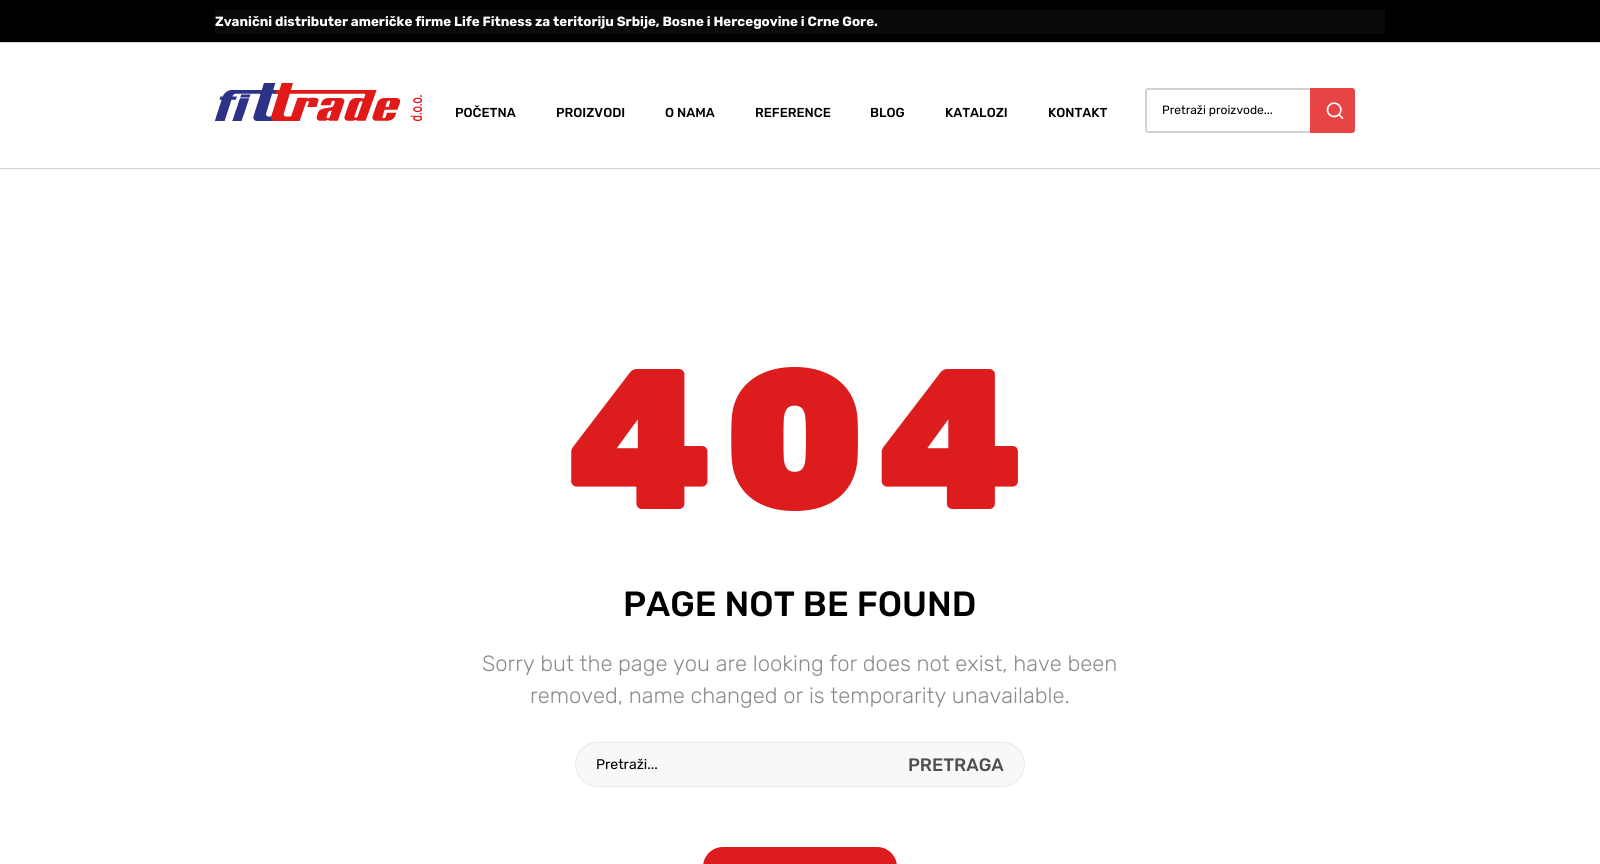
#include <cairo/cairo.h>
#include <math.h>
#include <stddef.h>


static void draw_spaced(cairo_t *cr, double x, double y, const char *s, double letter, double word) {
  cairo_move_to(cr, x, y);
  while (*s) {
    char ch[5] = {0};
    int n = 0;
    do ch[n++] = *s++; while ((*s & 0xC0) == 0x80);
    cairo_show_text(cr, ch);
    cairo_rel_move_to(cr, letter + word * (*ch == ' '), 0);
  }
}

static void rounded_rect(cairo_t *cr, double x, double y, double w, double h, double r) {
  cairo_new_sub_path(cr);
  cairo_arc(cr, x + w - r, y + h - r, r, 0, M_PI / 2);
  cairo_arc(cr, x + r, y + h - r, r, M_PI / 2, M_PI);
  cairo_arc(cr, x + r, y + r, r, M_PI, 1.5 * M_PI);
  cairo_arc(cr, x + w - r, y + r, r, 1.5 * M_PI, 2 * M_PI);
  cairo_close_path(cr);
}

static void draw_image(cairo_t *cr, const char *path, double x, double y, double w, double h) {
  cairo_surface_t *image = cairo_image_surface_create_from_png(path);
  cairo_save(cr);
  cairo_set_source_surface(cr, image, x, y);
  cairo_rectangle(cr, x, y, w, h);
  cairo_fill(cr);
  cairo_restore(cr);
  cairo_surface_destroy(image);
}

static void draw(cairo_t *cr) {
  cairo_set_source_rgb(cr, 1, 1, 1);
  cairo_paint(cr);
  cairo_set_source_rgb(cr, 0, 0, 0);
  cairo_rectangle(cr, 0, 0, 1600, 42);
  cairo_fill(cr);
  cairo_set_source_rgb(cr, 210 / 255.0, 210 / 255.0, 210 / 255.0);
  cairo_rectangle(cr, 0, 42, 1600, 1);
  cairo_fill(cr);
  cairo_set_source_rgb(cr, 10 / 255.0, 10 / 255.0, 10 / 255.0);
  cairo_rectangle(cr, 215, 10, 1170, 24);
  cairo_fill(cr);
  cairo_set_source_rgb(cr, 210 / 255.0, 210 / 255.0, 210 / 255.0);
  cairo_rectangle(cr, 0, 168, 1600, 1);
  cairo_fill(cr);
  draw_image(cr, "images/1.png", 215, 83, 207, 38);
  rounded_rect(cr, 1146, 89, 208, 43, 2);
  cairo_stroke(cr);
  cairo_set_source_rgb(cr, 231 / 255.0, 69 / 255.0, 69 / 255.0);
  cairo_new_path(cr);
  cairo_move_to(cr, 1310, 88);
  cairo_line_to(cr, 1352, 88);
  cairo_curve_to(cr, 1353.5, 88, 1355, 89.5, 1355, 91);
  cairo_line_to(cr, 1355, 130);
  cairo_curve_to(cr, 1355, 131.5, 1353.5, 133, 1352, 133);
  cairo_line_to(cr, 1310, 133);
  cairo_close_path(cr);
  cairo_fill(cr);
  draw_image(cr, "images/2.png", 1326, 102, 18, 17);
  cairo_set_source_rgb(cr, 248 / 255.0, 248 / 255.0, 248 / 255.0);
  rounded_rect(cr, 575.5, 742.5, 449, 44, 22);
  cairo_fill_preserve(cr);
  cairo_set_source_rgb(cr, 233 / 255.0, 233 / 255.0, 233 / 255.0);
  cairo_set_line_width(cr, 1);
  cairo_stroke(cr);
  cairo_set_source_rgb(cr, 221 / 255.0, 28 / 255.0, 29 / 255.0);
  rounded_rect(cr, 703, 847, 194, 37, 20);
  cairo_fill(cr);
  cairo_select_font_face(cr, "Rubik", CAIRO_FONT_SLANT_NORMAL, CAIRO_FONT_WEIGHT_BOLD);
  cairo_set_font_size(cr, 13.35);
  cairo_set_source_rgb(cr, 1, 1, 1);
  cairo_move_to(cr, 215, 26);
  cairo_show_text(cr, "Zvanični distributer američke firme Life Fitness za teritoriju Srbije, Bosne i Hercegovine i Crne Gore.");
  cairo_select_font_face(cr, "Rubik Medium", CAIRO_FONT_SLANT_NORMAL, CAIRO_FONT_WEIGHT_NORMAL);
  cairo_set_font_size(cr, 13);
  cairo_set_source_rgb(cr, 0, 0, 0);
  cairo_move_to(cr, 455, 117);
  cairo_show_text(cr, "POČETNA");
  cairo_move_to(cr, 556, 117);
  cairo_show_text(cr, "PROIZVODI");
  cairo_move_to(cr, 665, 117);
  cairo_show_text(cr, "O NAMA");
  cairo_move_to(cr, 755, 117);
  cairo_show_text(cr, "REFERENCE");
  cairo_move_to(cr, 870, 117);
  cairo_show_text(cr, "BLOG");
  cairo_move_to(cr, 945, 117);
  cairo_show_text(cr, "KATALOZI");
  cairo_move_to(cr, 1048, 117);
  cairo_show_text(cr, "KONTAKT");
  cairo_select_font_face(cr, "Rubik", CAIRO_FONT_SLANT_NORMAL, CAIRO_FONT_WEIGHT_NORMAL);
  cairo_set_font_size(cr, 12);
  cairo_move_to(cr, 1162, 114);
  cairo_show_text(cr, "Pretraži proizvode...");
  cairo_select_font_face(cr, "Rubik Black", CAIRO_FONT_SLANT_NORMAL, CAIRO_FONT_WEIGHT_NORMAL);
  cairo_set_font_size(cr, 200);
  cairo_set_source_rgb(cr, 221 / 255.0, 28 / 255.0, 29 / 255.0);
  draw_spaced(cr, 566, 509, "404", 10, 0);
  cairo_select_font_face(cr, "Rubik Medium", CAIRO_FONT_SLANT_NORMAL, CAIRO_FONT_WEIGHT_NORMAL);
  cairo_set_font_size(cr, 35);
  cairo_set_source_rgb(cr, 0, 0, 0);
  cairo_move_to(cr, 623, 616);
  cairo_show_text(cr, "PAGE NOT BE FOUND");
  cairo_select_font_face(cr, "Rubik Light", CAIRO_FONT_SLANT_NORMAL, CAIRO_FONT_WEIGHT_NORMAL);
  cairo_set_font_size(cr, 22);
  cairo_set_source_rgb(cr, 140 / 255.0, 140 / 255.0, 140 / 255.0);
  cairo_move_to(cr, 482, 671);
  cairo_show_text(cr, "Sorry but the page you are looking for does not exist, have been");
  cairo_move_to(cr, 530, 703);
  cairo_show_text(cr, "removed, name changed or is temporarity unavailable.");
  cairo_select_font_face(cr, "Rubik", CAIRO_FONT_SLANT_NORMAL, CAIRO_FONT_WEIGHT_NORMAL);
  cairo_set_font_size(cr, 14);
  cairo_set_source_rgb(cr, 0, 0, 0);
  cairo_move_to(cr, 596, 769);
  cairo_show_text(cr, "Pretraži...");
  cairo_select_font_face(cr, "Rubik Medium", CAIRO_FONT_SLANT_NORMAL, CAIRO_FONT_WEIGHT_NORMAL);
  cairo_set_font_size(cr, 18);
  cairo_set_source_rgb(cr, 79 / 255.0, 79 / 255.0, 79 / 255.0);
  cairo_move_to(cr, 908, 771);
  cairo_show_text(cr, "PRETRAGA");
}

int main(void) {
  cairo_surface_t *surface = cairo_image_surface_create(CAIRO_FORMAT_RGB24, 1600, 864);
  cairo_t *cr = cairo_create(surface);
  cairo_font_options_t *options = cairo_font_options_create();
  cairo_font_options_set_hint_metrics(options, CAIRO_HINT_METRICS_OFF);
  cairo_font_options_set_hint_style(options, CAIRO_HINT_STYLE_NONE);
  cairo_set_font_options(cr, options);
  cairo_set_miter_limit(cr, 4);
  draw(cr);
  cairo_surface_write_to_png(surface, "out.png");
  cairo_font_options_destroy(options);
  cairo_destroy(cr);
  cairo_surface_destroy(surface);
  return 0;
}
